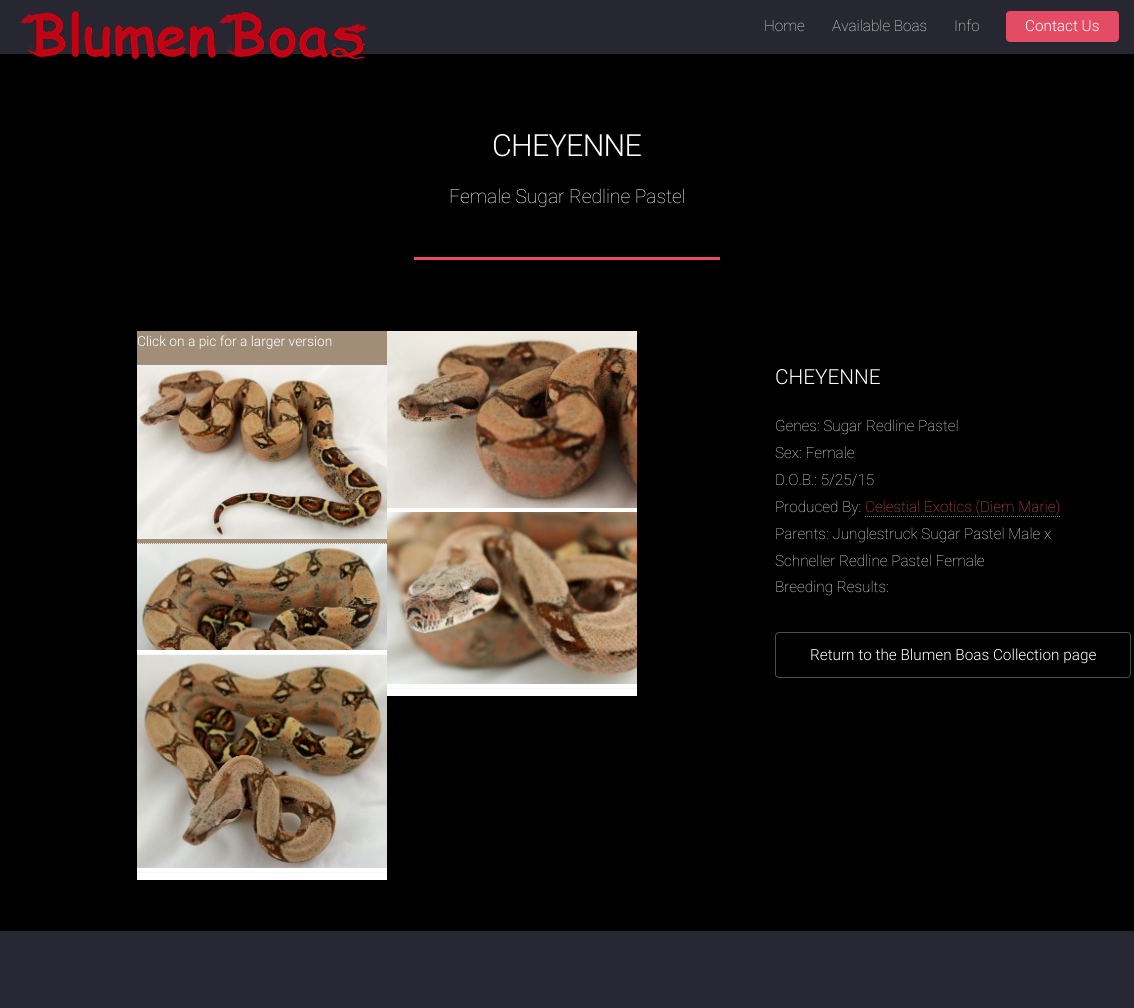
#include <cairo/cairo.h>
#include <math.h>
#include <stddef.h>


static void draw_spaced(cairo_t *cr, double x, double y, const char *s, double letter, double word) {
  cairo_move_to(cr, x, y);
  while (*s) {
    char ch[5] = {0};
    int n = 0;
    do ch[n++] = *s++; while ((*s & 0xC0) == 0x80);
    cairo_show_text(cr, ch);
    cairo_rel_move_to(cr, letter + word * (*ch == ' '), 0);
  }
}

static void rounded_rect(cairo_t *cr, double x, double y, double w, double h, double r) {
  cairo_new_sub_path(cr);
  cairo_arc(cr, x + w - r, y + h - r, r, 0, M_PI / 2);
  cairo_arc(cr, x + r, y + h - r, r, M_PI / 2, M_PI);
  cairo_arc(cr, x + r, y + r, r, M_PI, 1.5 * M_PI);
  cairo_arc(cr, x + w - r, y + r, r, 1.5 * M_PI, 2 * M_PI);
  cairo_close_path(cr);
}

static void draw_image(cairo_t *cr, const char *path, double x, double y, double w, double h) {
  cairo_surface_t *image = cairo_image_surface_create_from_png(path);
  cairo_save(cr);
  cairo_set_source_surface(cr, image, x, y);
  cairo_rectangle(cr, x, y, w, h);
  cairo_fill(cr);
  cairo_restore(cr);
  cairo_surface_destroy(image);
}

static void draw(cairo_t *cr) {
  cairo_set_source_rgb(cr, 0, 0, 0);
  cairo_paint(cr);
  cairo_set_source_rgb(cr, 38 / 255.0, 39 / 255.0, 49 / 255.0);
  cairo_rectangle(cr, 0, 0, 1134, 54);
  cairo_fill(cr);
  draw_image(cr, "images/1.png", 20, 11, 348, 48);
  cairo_set_source_rgb(cr, 228 / 255.0, 76 / 255.0, 101 / 255.0);
  rounded_rect(cr, 1006, 11, 113, 31, 4);
  cairo_fill(cr);
  cairo_rectangle(cr, 414, 257, 306, 3);
  cairo_fill(cr);
  cairo_set_source_rgb(cr, 161 / 255.0, 142 / 255.0, 121 / 255.0);
  cairo_rectangle(cr, 137, 331, 250, 213);
  cairo_fill(cr);
  draw_image(cr, "images/2.png", 137, 365, 250, 174);
  cairo_new_path(cr);
  cairo_move_to(cr, 137, 543.5);
  cairo_line_to(cr, 387, 543.5);
  cairo_set_source_rgb(cr, 238 / 255.0, 238 / 255.0, 238 / 255.0);
  cairo_set_line_width(cr, 1);
  cairo_set_dash(cr, (double[]){1, 1}, 2, 0);
  cairo_stroke(cr);
  cairo_set_source_rgb(cr, 1, 1, 1);
  cairo_rectangle(cr, 387, 508, 250, 4);
  cairo_fill(cr);
  draw_image(cr, "images/3.png", 387, 331, 250, 177);
  cairo_rectangle(cr, 137, 650, 250, 5);
  cairo_fill(cr);
  draw_image(cr, "images/4.png", 137, 544, 250, 106);
  cairo_new_path(cr);
  cairo_move_to(cr, 137, 654.5);
  cairo_line_to(cr, 387, 654.5);
  cairo_set_source_rgb(cr, 238 / 255.0, 238 / 255.0, 238 / 255.0);
  cairo_stroke(cr);
  cairo_set_source_rgb(cr, 1, 1, 1);
  cairo_rectangle(cr, 387, 684, 250, 12);
  cairo_fill(cr);
  draw_image(cr, "images/5.png", 387, 512, 250, 172);
  cairo_new_path(cr);
  cairo_move_to(cr, 387, 688.5);
  cairo_line_to(cr, 637, 688.5);
  cairo_set_source_rgb(cr, 238 / 255.0, 238 / 255.0, 238 / 255.0);
  cairo_stroke(cr);
  cairo_set_source_rgb(cr, 1, 1, 1);
  cairo_rectangle(cr, 137, 868, 250, 12);
  cairo_fill(cr);
  draw_image(cr, "images/6.png", 137, 655, 250, 213);
  cairo_new_path(cr);
  cairo_move_to(cr, 137, 872.5);
  cairo_line_to(cr, 387, 872.5);
  cairo_set_source_rgb(cr, 238 / 255.0, 238 / 255.0, 238 / 255.0);
  cairo_stroke(cr);
  cairo_new_path(cr);
  cairo_move_to(cr, 865, 516.5);
  cairo_line_to(cr, 1061, 516.5);
  cairo_set_source_rgb(cr, 228 / 255.0, 76 / 255.0, 101 / 255.0);
  cairo_stroke(cr);
  rounded_rect(cr, 775.5, 632.5, 355, 45, 3.5);
  cairo_set_source_rgb(cr, 77 / 255.0, 77 / 255.0, 77 / 255.0);
  cairo_set_dash(cr, NULL, 0, 0);
  cairo_stroke(cr);
  cairo_set_source_rgb(cr, 39 / 255.0, 40 / 255.0, 51 / 255.0);
  cairo_rectangle(cr, 0, 931, 1134, 77);
  cairo_fill(cr);
  cairo_select_font_face(cr, "Roboto Thin", CAIRO_FONT_SLANT_NORMAL, CAIRO_FONT_WEIGHT_NORMAL);
  cairo_set_font_size(cr, 15.3);
  cairo_set_source_rgb(cr, 238 / 255.0, 238 / 255.0, 238 / 255.0);
  cairo_move_to(cr, 764, 31);
  cairo_show_text(cr, "Home");
  cairo_move_to(cr, 832, 31);
  cairo_show_text(cr, "Available Boas");
  cairo_move_to(cr, 954, 31);
  cairo_show_text(cr, "Info");
  cairo_select_font_face(cr, "Roboto Light", CAIRO_FONT_SLANT_NORMAL, CAIRO_FONT_WEIGHT_NORMAL);
  cairo_set_source_rgb(cr, 1, 1, 1);
  cairo_move_to(cr, 1025, 31);
  cairo_show_text(cr, "Contact Us");
  cairo_set_font_size(cr, 30.5);
  draw_spaced(cr, 492, 156, "CHEYENNE", -0.75, 0);
  cairo_select_font_face(cr, "Roboto Thin", CAIRO_FONT_SLANT_NORMAL, CAIRO_FONT_WEIGHT_NORMAL);
  cairo_set_font_size(cr, 19.25);
  cairo_move_to(cr, 449, 203);
  cairo_show_text(cr, "Female Sugar Redline Pastel");
  cairo_select_font_face(cr, "Roboto Light", CAIRO_FONT_SLANT_NORMAL, CAIRO_FONT_WEIGHT_NORMAL);
  cairo_set_font_size(cr, 13.75);
  cairo_move_to(cr, 137, 346);
  cairo_show_text(cr, "Click on a pic for a larger version");
  cairo_set_font_size(cr, 20.75);
  cairo_move_to(cr, 775, 384);
  cairo_show_text(cr, "CHEYENNE");
  cairo_select_font_face(cr, "Roboto Thin", CAIRO_FONT_SLANT_NORMAL, CAIRO_FONT_WEIGHT_NORMAL);
  cairo_set_font_size(cr, 15.3);
  cairo_set_source_rgb(cr, 238 / 255.0, 238 / 255.0, 238 / 255.0);
  cairo_move_to(cr, 775, 431);
  cairo_show_text(cr, "Genes: Sugar Redline Pastel");
  cairo_move_to(cr, 775, 458);
  cairo_show_text(cr, "Sex: Female");
  cairo_move_to(cr, 775, 485);
  cairo_show_text(cr, "D.O.B.: 5/25/15");
  cairo_move_to(cr, 775, 512);
  cairo_show_text(cr, "Produced By:");
  cairo_set_source_rgb(cr, 228 / 255.0, 76 / 255.0, 101 / 255.0);
  cairo_move_to(cr, 865, 512);
  cairo_show_text(cr, "Celestial Exotics (Diem Marie)");
  cairo_set_source_rgb(cr, 238 / 255.0, 238 / 255.0, 238 / 255.0);
  cairo_move_to(cr, 775, 539);
  cairo_show_text(cr, "Parents: Junglestruck Sugar Pastel Male x");
  cairo_move_to(cr, 775, 566);
  cairo_show_text(cr, "Schneller Redline Pastel Female");
  cairo_move_to(cr, 775, 592);
  cairo_show_text(cr, "Breeding Results:");
  cairo_select_font_face(cr, "Roboto Light", CAIRO_FONT_SLANT_NORMAL, CAIRO_FONT_WEIGHT_NORMAL);
  cairo_set_source_rgb(cr, 1, 1, 1);
  cairo_move_to(cr, 810, 660);
  cairo_show_text(cr, "Return to the Blumen Boas Collection page");
}

int main(void) {
  cairo_surface_t *surface = cairo_image_surface_create(CAIRO_FORMAT_RGB24, 1134, 1008);
  cairo_t *cr = cairo_create(surface);
  cairo_font_options_t *options = cairo_font_options_create();
  cairo_font_options_set_hint_metrics(options, CAIRO_HINT_METRICS_OFF);
  cairo_font_options_set_hint_style(options, CAIRO_HINT_STYLE_NONE);
  cairo_set_font_options(cr, options);
  cairo_set_miter_limit(cr, 4);
  draw(cr);
  cairo_surface_write_to_png(surface, "out.png");
  cairo_font_options_destroy(options);
  cairo_destroy(cr);
  cairo_surface_destroy(surface);
  return 0;
}
